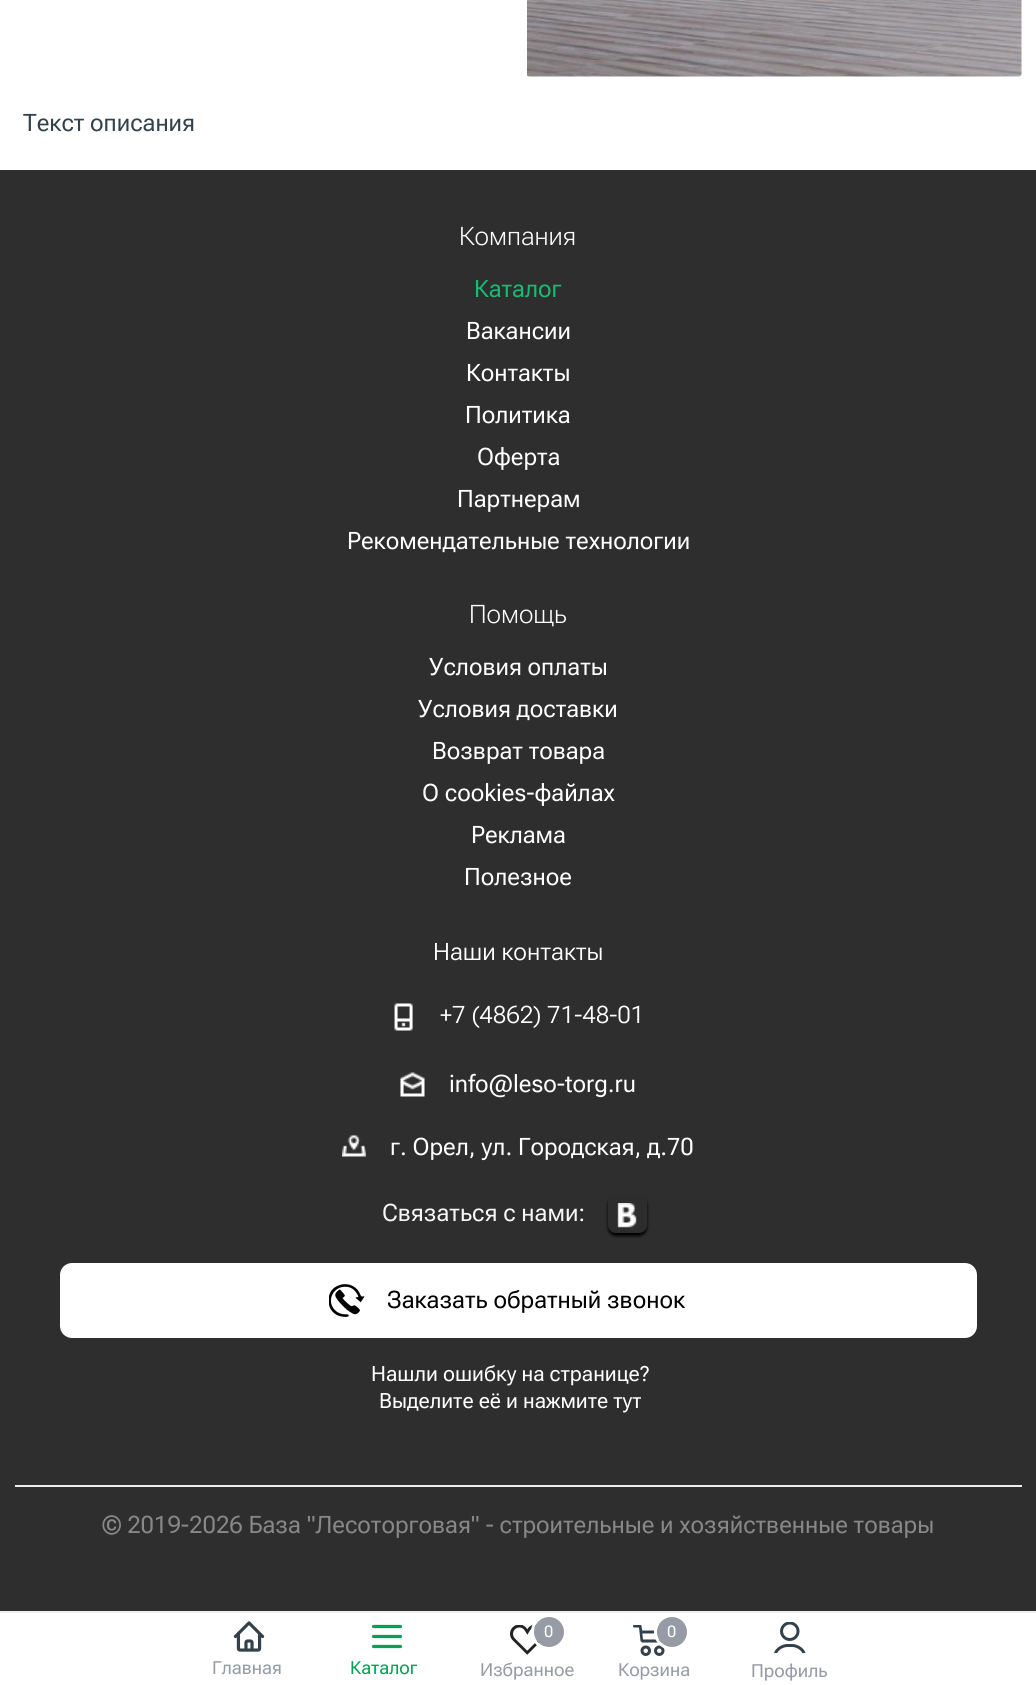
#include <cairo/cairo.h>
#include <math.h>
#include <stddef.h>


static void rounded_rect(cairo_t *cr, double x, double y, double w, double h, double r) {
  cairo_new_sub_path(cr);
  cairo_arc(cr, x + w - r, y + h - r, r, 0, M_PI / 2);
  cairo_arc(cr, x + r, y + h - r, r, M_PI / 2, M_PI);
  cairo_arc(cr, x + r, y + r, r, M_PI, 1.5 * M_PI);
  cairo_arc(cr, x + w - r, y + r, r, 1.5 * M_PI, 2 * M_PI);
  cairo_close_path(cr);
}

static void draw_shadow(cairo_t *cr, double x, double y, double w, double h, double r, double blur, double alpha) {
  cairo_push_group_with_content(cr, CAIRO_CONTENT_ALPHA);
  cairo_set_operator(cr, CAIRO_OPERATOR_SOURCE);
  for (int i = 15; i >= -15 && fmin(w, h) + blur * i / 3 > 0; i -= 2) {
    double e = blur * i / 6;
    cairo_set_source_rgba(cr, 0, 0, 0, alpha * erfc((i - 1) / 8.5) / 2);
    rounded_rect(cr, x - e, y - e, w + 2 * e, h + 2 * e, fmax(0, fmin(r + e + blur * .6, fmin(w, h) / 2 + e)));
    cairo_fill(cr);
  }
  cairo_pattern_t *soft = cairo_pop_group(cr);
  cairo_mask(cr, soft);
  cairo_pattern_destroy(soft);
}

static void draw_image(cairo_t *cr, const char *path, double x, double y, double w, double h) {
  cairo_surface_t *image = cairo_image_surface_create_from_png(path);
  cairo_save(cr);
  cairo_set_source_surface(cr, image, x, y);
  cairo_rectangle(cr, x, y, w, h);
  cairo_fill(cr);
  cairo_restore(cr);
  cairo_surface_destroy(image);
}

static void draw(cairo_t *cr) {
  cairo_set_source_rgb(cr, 1, 1, 1);
  cairo_paint(cr);
  draw_image(cr, "images/1.png", 527, 0, 495, 77);
  cairo_set_source_rgb(cr, 238 / 255.0, 238 / 255.0, 238 / 255.0);
  cairo_rectangle(cr, 0, 1611, 1036, 2);
  cairo_fill(cr);
  draw_image(cr, "images/2.png", 233, 1621, 32, 31);
  cairo_new_path(cr);
  cairo_move_to(cr, 373.5, 1626.5);
  cairo_line_to(cr, 400.5, 1626.5);
  cairo_move_to(cr, 373.5, 1636.5);
  cairo_line_to(cr, 400.5, 1636.5);
  cairo_move_to(cr, 373.5, 1646.5);
  cairo_line_to(cr, 400.5, 1646.5);
  cairo_set_source_rgb(cr, 0, 161 / 255.0, 84 / 255.0);
  cairo_set_line_width(cr, 3.2);
  cairo_set_line_cap(cr, CAIRO_LINE_CAP_ROUND);
  cairo_set_line_join(cr, CAIRO_LINE_JOIN_ROUND);
  cairo_stroke(cr);
  draw_image(cr, "images/3.png", 510, 1625, 29, 30);
  cairo_arc(cr, 549, 1632, 16.5, 0, 2 * M_PI);
  cairo_set_source_rgb(cr, 1, 1, 1);
  cairo_set_line_width(cr, 3);
  cairo_set_line_cap(cr, CAIRO_LINE_CAP_BUTT);
  cairo_set_line_join(cr, CAIRO_LINE_JOIN_MITER);
  cairo_stroke(cr);
  cairo_set_source_rgb(cr, 150 / 255.0, 155 / 255.0, 165 / 255.0);
  cairo_arc(cr, 549, 1632, 15, 0, 2 * M_PI);
  cairo_fill(cr);
  draw_image(cr, "images/4.png", 633, 1625, 32, 31);
  cairo_arc(cr, 672, 1632, 16.5, 0, 2 * M_PI);
  cairo_set_source_rgb(cr, 1, 1, 1);
  cairo_stroke(cr);
  cairo_set_source_rgb(cr, 150 / 255.0, 155 / 255.0, 165 / 255.0);
  cairo_arc(cr, 672, 1632, 15, 0, 2 * M_PI);
  cairo_fill(cr);
  draw_image(cr, "images/5.png", 774, 1622, 32, 31);
  cairo_set_source_rgb(cr, 46 / 255.0, 46 / 255.0, 47 / 255.0);
  cairo_rectangle(cr, 0, 170, 1036, 1441);
  cairo_fill(cr);
  draw_image(cr, "images/6.png", 394, 1003, 19, 28);
  draw_image(cr, "images/7.png", 400, 1072, 25, 25);
  draw_image(cr, "images/8.png", 342, 1134, 24, 23);
  cairo_set_source_rgb(cr, 0, 0, 0);
  draw_shadow(cr, 608, 1197, 39, 39, 8, 1.5, 1);
  cairo_set_source_rgb(cr, 45 / 255.0, 45 / 255.0, 45 / 255.0);
  rounded_rect(cr, 608, 1194, 39, 39, 8);
  cairo_fill(cr);
  draw_image(cr, "images/9.png", 617, 1203, 20, 25);
  cairo_set_source_rgb(cr, 1, 1, 1);
  rounded_rect(cr, 60, 1263, 917, 75, 12);
  cairo_fill(cr);
  draw_image(cr, "images/10.png", 329, 1284, 36, 33);
  cairo_set_source_rgb(cr, 238 / 255.0, 238 / 255.0, 238 / 255.0);
  cairo_rectangle(cr, 15, 1485, 1007, 2);
  cairo_fill(cr);
  cairo_select_font_face(cr, "Roboto Flex", CAIRO_FONT_SLANT_NORMAL, CAIRO_FONT_WEIGHT_NORMAL);
  cairo_set_font_size(cr, 24);
  cairo_set_source_rgb(cr, 50 / 255.0, 65 / 255.0, 74 / 255.0);
  cairo_move_to(cr, 23, 131);
  cairo_show_text(cr, "Текст описания");
  cairo_select_font_face(cr, "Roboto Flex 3", CAIRO_FONT_SLANT_NORMAL, CAIRO_FONT_WEIGHT_NORMAL);
  cairo_set_font_size(cr, 18);
  cairo_set_source_rgb(cr, 150 / 255.0, 155 / 255.0, 165 / 255.0);
  cairo_move_to(cr, 212, 1674);
  cairo_show_text(cr, "Главная");
  cairo_set_source_rgb(cr, 0, 161 / 255.0, 84 / 255.0);
  cairo_move_to(cr, 350, 1674);
  cairo_show_text(cr, "Каталог");
  cairo_select_font_face(cr, "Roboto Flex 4", CAIRO_FONT_SLANT_NORMAL, CAIRO_FONT_WEIGHT_NORMAL);
  cairo_set_font_size(cr, 16);
  cairo_set_source_rgb(cr, 1, 1, 1);
  cairo_move_to(cr, 544, 1637);
  cairo_show_text(cr, "0");
  cairo_select_font_face(cr, "Roboto Flex 3", CAIRO_FONT_SLANT_NORMAL, CAIRO_FONT_WEIGHT_NORMAL);
  cairo_set_font_size(cr, 18);
  cairo_set_source_rgb(cr, 150 / 255.0, 155 / 255.0, 165 / 255.0);
  cairo_move_to(cr, 480, 1676);
  cairo_show_text(cr, "Избранное");
  cairo_select_font_face(cr, "Roboto Flex 4", CAIRO_FONT_SLANT_NORMAL, CAIRO_FONT_WEIGHT_NORMAL);
  cairo_set_font_size(cr, 16);
  cairo_set_source_rgb(cr, 1, 1, 1);
  cairo_move_to(cr, 667, 1637);
  cairo_show_text(cr, "0");
  cairo_select_font_face(cr, "Roboto Flex 3", CAIRO_FONT_SLANT_NORMAL, CAIRO_FONT_WEIGHT_NORMAL);
  cairo_set_font_size(cr, 18);
  cairo_set_source_rgb(cr, 150 / 255.0, 155 / 255.0, 165 / 255.0);
  cairo_move_to(cr, 618, 1676);
  cairo_show_text(cr, "Корзина");
  cairo_move_to(cr, 751, 1677);
  cairo_show_text(cr, "Профиль");
  cairo_select_font_face(cr, "Roboto Flex ExtraLight", CAIRO_FONT_SLANT_NORMAL, CAIRO_FONT_WEIGHT_NORMAL);
  cairo_set_font_size(cr, 25.5);
  cairo_set_source_rgb(cr, 1, 1, 1);
  cairo_move_to(cr, 459, 245);
  cairo_show_text(cr, "Компания");
  cairo_select_font_face(cr, "Roboto Flex", CAIRO_FONT_SLANT_NORMAL, CAIRO_FONT_WEIGHT_NORMAL);
  cairo_set_font_size(cr, 24);
  cairo_set_source_rgb(cr, 21 / 255.0, 189 / 255.0, 115 / 255.0);
  cairo_move_to(cr, 474, 297);
  cairo_show_text(cr, "Каталог");
  cairo_set_source_rgb(cr, 1, 1, 1);
  cairo_move_to(cr, 466, 339);
  cairo_show_text(cr, "Вакансии");
  cairo_move_to(cr, 466, 381);
  cairo_show_text(cr, "Контакты");
  cairo_move_to(cr, 465, 423);
  cairo_show_text(cr, "Политика");
  cairo_move_to(cr, 477, 465);
  cairo_show_text(cr, "Оферта");
  cairo_move_to(cr, 457, 507);
  cairo_show_text(cr, "Партнерам");
  cairo_move_to(cr, 347, 549);
  cairo_show_text(cr, "Рекомендательные технологии");
  cairo_select_font_face(cr, "Roboto Flex ExtraLight", CAIRO_FONT_SLANT_NORMAL, CAIRO_FONT_WEIGHT_NORMAL);
  cairo_set_font_size(cr, 25.5);
  cairo_move_to(cr, 469, 623);
  cairo_show_text(cr, "Помощь");
  cairo_select_font_face(cr, "Roboto Flex", CAIRO_FONT_SLANT_NORMAL, CAIRO_FONT_WEIGHT_NORMAL);
  cairo_set_font_size(cr, 24);
  cairo_move_to(cr, 429, 675);
  cairo_show_text(cr, "Условия оплаты");
  cairo_move_to(cr, 418, 717);
  cairo_show_text(cr, "Условия доставки");
  cairo_move_to(cr, 432, 759);
  cairo_show_text(cr, "Возврат товара");
  cairo_move_to(cr, 422, 801);
  cairo_show_text(cr, "О cookies-файлах");
  cairo_move_to(cr, 471, 843);
  cairo_show_text(cr, "Реклама");
  cairo_move_to(cr, 464, 885);
  cairo_show_text(cr, "Полезное");
  cairo_select_font_face(cr, "Roboto Flex Light", CAIRO_FONT_SLANT_NORMAL, CAIRO_FONT_WEIGHT_NORMAL);
  cairo_move_to(cr, 433, 960);
  cairo_show_text(cr, "Наши контакты");
  cairo_move_to(cr, 440, 1023);
  cairo_show_text(cr, "+7 (4862) 71-48-01");
  cairo_select_font_face(cr, "Roboto Flex", CAIRO_FONT_SLANT_NORMAL, CAIRO_FONT_WEIGHT_NORMAL);
  cairo_move_to(cr, 449, 1092);
  cairo_show_text(cr, "info@leso-torg.ru");
  cairo_move_to(cr, 390, 1155);
  cairo_show_text(cr, "г. Орел, ул. Городская, д.70");
  cairo_set_source_rgb(cr, 247 / 255.0, 247 / 255.0, 247 / 255.0);
  cairo_move_to(cr, 382, 1221);
  cairo_show_text(cr, "Связаться с нами:");
  cairo_set_source_rgb(cr, 0, 0, 0);
  cairo_move_to(cr, 387, 1308);
  cairo_show_text(cr, "Заказать обратный звонок");
  cairo_select_font_face(cr, "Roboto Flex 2", CAIRO_FONT_SLANT_NORMAL, CAIRO_FONT_WEIGHT_NORMAL);
  cairo_set_font_size(cr, 21);
  cairo_set_source_rgb(cr, 1, 1, 1);
  cairo_move_to(cr, 371, 1381);
  cairo_show_text(cr, "Нашли ошибку на странице?");
  cairo_move_to(cr, 379, 1408);
  cairo_show_text(cr, "Выделите её и нажмите тут");
  cairo_select_font_face(cr, "Roboto Flex", CAIRO_FONT_SLANT_NORMAL, CAIRO_FONT_WEIGHT_NORMAL);
  cairo_set_font_size(cr, 24);
  cairo_set_source_rgb(cr, 136 / 255.0, 136 / 255.0, 136 / 255.0);
  cairo_move_to(cr, 102, 1533);
  cairo_show_text(cr, "© 2019-2026 База \"Лесоторговая\" - строительные и хозяйственные товары");
}

int main(void) {
  cairo_surface_t *surface = cairo_image_surface_create(CAIRO_FORMAT_RGB24, 1036, 1685);
  cairo_t *cr = cairo_create(surface);
  cairo_font_options_t *options = cairo_font_options_create();
  cairo_font_options_set_hint_metrics(options, CAIRO_HINT_METRICS_OFF);
  cairo_font_options_set_hint_style(options, CAIRO_HINT_STYLE_NONE);
  cairo_set_font_options(cr, options);
  cairo_set_miter_limit(cr, 4);
  draw(cr);
  cairo_surface_write_to_png(surface, "out.png");
  cairo_font_options_destroy(options);
  cairo_destroy(cr);
  cairo_surface_destroy(surface);
  return 0;
}
